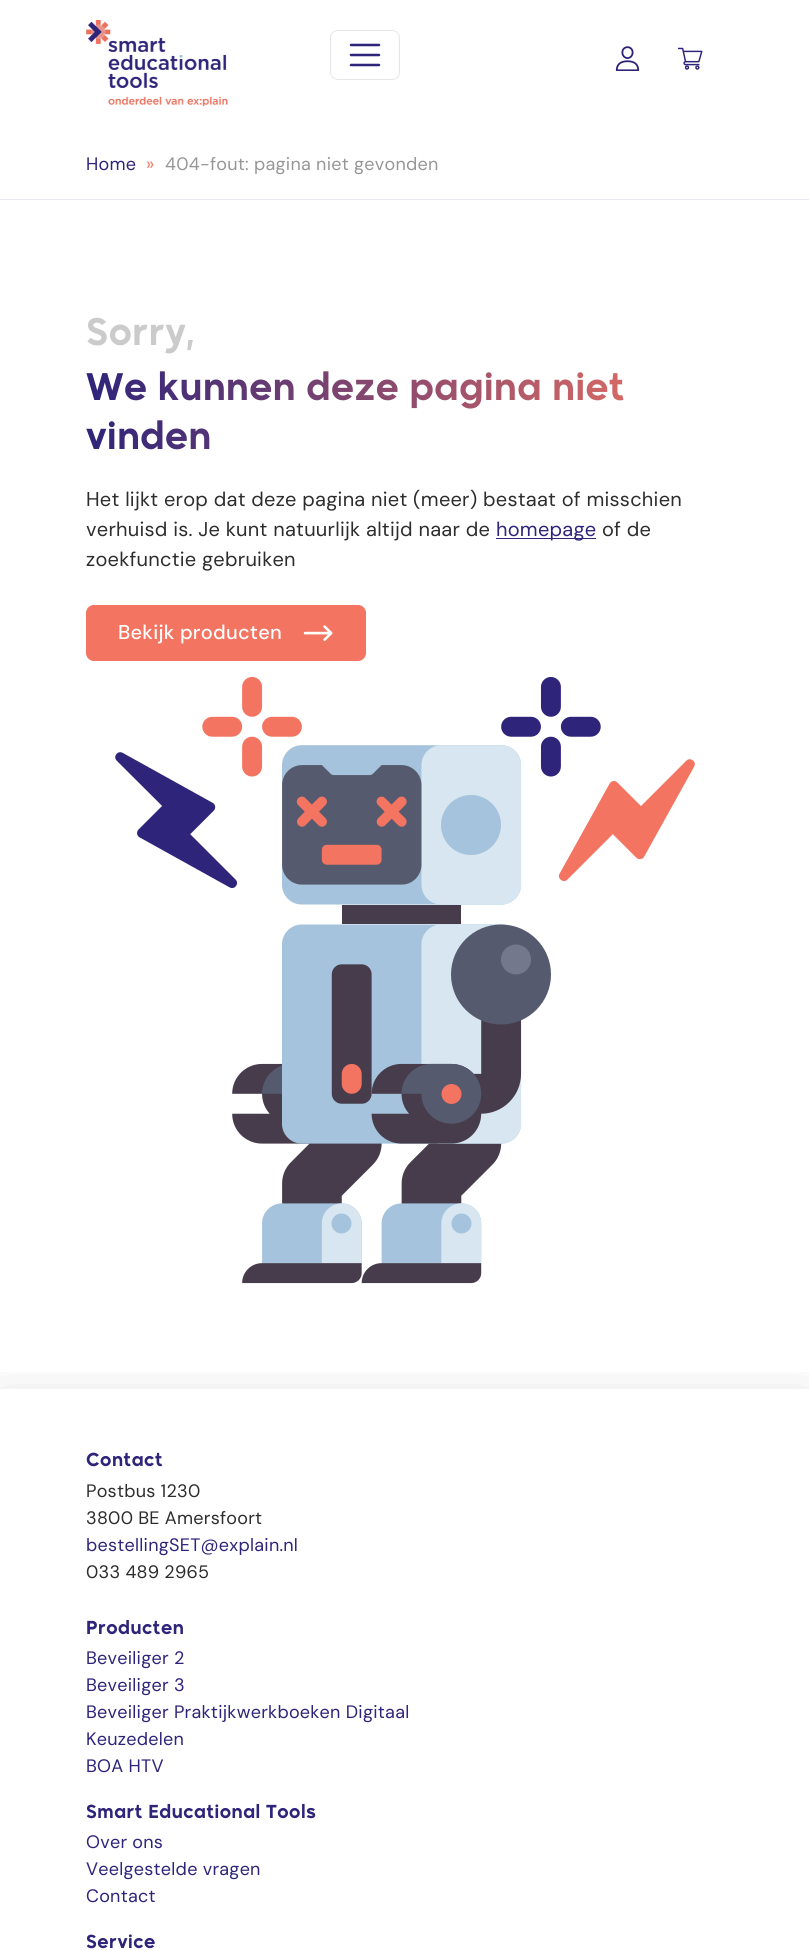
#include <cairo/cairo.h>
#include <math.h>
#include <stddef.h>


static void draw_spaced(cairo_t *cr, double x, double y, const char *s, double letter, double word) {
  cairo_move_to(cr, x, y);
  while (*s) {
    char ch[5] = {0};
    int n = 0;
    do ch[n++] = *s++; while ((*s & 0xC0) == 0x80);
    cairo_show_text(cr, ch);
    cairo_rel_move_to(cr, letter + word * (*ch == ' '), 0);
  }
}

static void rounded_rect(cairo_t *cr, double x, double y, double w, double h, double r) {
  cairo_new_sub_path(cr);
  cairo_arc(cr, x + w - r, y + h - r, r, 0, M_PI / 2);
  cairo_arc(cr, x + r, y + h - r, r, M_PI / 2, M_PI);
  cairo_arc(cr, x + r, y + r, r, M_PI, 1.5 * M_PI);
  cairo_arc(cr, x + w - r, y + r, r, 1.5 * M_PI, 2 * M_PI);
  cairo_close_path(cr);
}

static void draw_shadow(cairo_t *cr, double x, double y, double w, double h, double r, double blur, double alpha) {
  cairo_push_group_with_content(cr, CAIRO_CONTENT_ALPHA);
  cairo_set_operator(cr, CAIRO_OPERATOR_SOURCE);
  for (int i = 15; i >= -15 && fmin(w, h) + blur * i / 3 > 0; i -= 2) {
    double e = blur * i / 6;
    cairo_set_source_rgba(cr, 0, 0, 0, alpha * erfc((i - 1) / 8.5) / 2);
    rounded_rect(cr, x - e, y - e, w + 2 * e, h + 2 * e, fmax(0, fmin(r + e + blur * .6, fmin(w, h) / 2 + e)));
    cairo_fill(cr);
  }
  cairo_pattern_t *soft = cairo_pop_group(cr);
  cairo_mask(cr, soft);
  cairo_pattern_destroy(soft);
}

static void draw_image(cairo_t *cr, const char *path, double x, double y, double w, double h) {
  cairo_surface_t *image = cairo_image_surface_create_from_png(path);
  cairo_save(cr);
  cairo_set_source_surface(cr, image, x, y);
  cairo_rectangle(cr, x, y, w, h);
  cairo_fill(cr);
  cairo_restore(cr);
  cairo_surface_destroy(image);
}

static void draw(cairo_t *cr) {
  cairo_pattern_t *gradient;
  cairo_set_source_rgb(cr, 1, 1, 1);
  cairo_paint(cr);
  draw_image(cr, "images/1.png", 86, 20, 142, 87);
  rounded_rect(cr, 330.5, 30.5, 69, 49, 7.5);
  cairo_set_source_rgb(cr, 230 / 255.0, 230 / 255.0, 230 / 255.0);
  cairo_set_line_width(cr, 1);
  cairo_stroke(cr);
  cairo_new_path(cr);
  cairo_move_to(cr, 351, 45);
  cairo_line_to(cr, 379, 45);
  cairo_move_to(cr, 351, 55);
  cairo_line_to(cr, 379, 55);
  cairo_move_to(cr, 351, 65);
  cairo_line_to(cr, 379, 65);
  cairo_set_source_rgb(cr, 46 / 255.0, 36 / 255.0, 122 / 255.0);
  cairo_set_line_width(cr, 2.5);
  cairo_set_line_cap(cr, CAIRO_LINE_CAP_ROUND);
  cairo_stroke(cr);
  draw_image(cr, "images/2.png", 615, 46, 25, 25);
  draw_image(cr, "images/3.png", 678, 47, 25, 23);
  cairo_set_source_rgb(cr, 234 / 255.0, 233 / 255.0, 241 / 255.0);
  cairo_rectangle(cr, 0, 199, 809, 1);
  cairo_fill(cr);
  cairo_set_source_rgb(cr, 46 / 255.0, 36 / 255.0, 122 / 255.0);
  cairo_rectangle(cr, 496, 538, 100, 1);
  cairo_fill(cr);
  cairo_set_source_rgb(cr, 242 / 255.0, 116 / 255.0, 97 / 255.0);
  rounded_rect(cr, 86.5, 605.5, 279, 55, 7.5);
  cairo_fill_preserve(cr);
  cairo_set_line_width(cr, 1);
  cairo_set_line_cap(cr, CAIRO_LINE_CAP_BUTT);
  cairo_stroke(cr);
  draw_image(cr, "images/4.png", 303, 625, 30, 16);
  draw_image(cr, "images/5.png", 115, 676, 580, 608);
  cairo_save(cr);
  cairo_rectangle(cr, 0, 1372, 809, 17);
  cairo_clip(cr);
  cairo_set_source_rgb(cr, 0, 0, 0);
  draw_shadow(cr, 0, 1409, 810, 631, 0, 30, 0.18);
  cairo_restore(cr);
  cairo_select_font_face(cr, "DM Sans", CAIRO_FONT_SLANT_NORMAL, CAIRO_FONT_WEIGHT_NORMAL);
  cairo_set_font_size(cr, 18);
  cairo_set_source_rgb(cr, 46 / 255.0, 36 / 255.0, 122 / 255.0);
  draw_spaced(cr, 86, 170, "Home", 0.25, 0);
  cairo_set_source_rgb(cr, 242 / 255.0, 116 / 255.0, 97 / 255.0);
  draw_spaced(cr, 146, 170, "»", 0.25, 0);
  cairo_set_source_rgb(cr, 150 / 255.0, 150 / 255.0, 150 / 255.0);
  draw_spaced(cr, 165, 170, "404-fout: pagina niet gevonden", 0.25, 0);
  cairo_select_font_face(cr, "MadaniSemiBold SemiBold", CAIRO_FONT_SLANT_NORMAL, CAIRO_FONT_WEIGHT_NORMAL);
  cairo_set_font_size(cr, 36.75);
  cairo_set_source_rgb(cr, 203 / 255.0, 203 / 255.0, 203 / 255.0);
  draw_spaced(cr, 86, 345, "Sorry,", 0.5, 0);
  gradient = cairo_pattern_create_linear(86, 416, 724, 416);
  cairo_pattern_add_color_stop_rgba(gradient, 0, 46 / 255.0, 36 / 255.0, 122 / 255.0, 1);
  cairo_pattern_add_color_stop_rgba(gradient, 1, 242 / 255.0, 116 / 255.0, 97 / 255.0, 1);
  cairo_set_source(cr, gradient);
  cairo_pattern_destroy(gradient);
  draw_spaced(cr, 86, 400, "We kunnen deze pagina niet", 0.5, 0);
  draw_spaced(cr, 86, 449, "vinden", 0.5, 0);
  cairo_select_font_face(cr, "DM Sans", CAIRO_FONT_SLANT_NORMAL, CAIRO_FONT_WEIGHT_NORMAL);
  cairo_set_font_size(cr, 20);
  cairo_set_source_rgb(cr, 45 / 255.0, 45 / 255.0, 45 / 255.0);
  draw_spaced(cr, 86, 506, "Het lijkt erop dat deze pagina niet (meer) bestaat of misschien", 0.25, 0);
  draw_spaced(cr, 86, 536, "verhuisd is. Je kunt natuurlijk altijd naar de", 0.25, 0);
  cairo_set_source_rgb(cr, 46 / 255.0, 36 / 255.0, 122 / 255.0);
  draw_spaced(cr, 496, 536, "homepage", 0.25, 0);
  cairo_set_source_rgb(cr, 45 / 255.0, 45 / 255.0, 45 / 255.0);
  draw_spaced(cr, 602, 536, "of de", 0.25, 0);
  draw_spaced(cr, 86, 566, "zoekfunctie gebruiken", 0.25, 0);
  cairo_select_font_face(cr, "DM Sans Medium", CAIRO_FONT_SLANT_NORMAL, CAIRO_FONT_WEIGHT_NORMAL);
  cairo_set_source_rgb(cr, 1, 1, 1);
  draw_spaced(cr, 118, 639, "Bekijk producten", 0.25, 0);
  cairo_select_font_face(cr, "MadaniSemiBold SemiBold", CAIRO_FONT_SLANT_NORMAL, CAIRO_FONT_WEIGHT_NORMAL);
  cairo_set_font_size(cr, 18);
  cairo_set_source_rgb(cr, 46 / 255.0, 36 / 255.0, 122 / 255.0);
  draw_spaced(cr, 86, 1466, "Contact", 0.5, 0);
  cairo_select_font_face(cr, "DM Sans", CAIRO_FONT_SLANT_NORMAL, CAIRO_FONT_WEIGHT_NORMAL);
  cairo_set_source_rgb(cr, 45 / 255.0, 45 / 255.0, 45 / 255.0);
  draw_spaced(cr, 86, 1497, "Postbus 1230", 0.25, 0);
  draw_spaced(cr, 86, 1524, "3800 BE Amersfoort", 0.25, 0);
  cairo_set_source_rgb(cr, 46 / 255.0, 36 / 255.0, 122 / 255.0);
  draw_spaced(cr, 86, 1551, "bestellingSET@explain.nl", 0.25, 0);
  cairo_set_source_rgb(cr, 45 / 255.0, 45 / 255.0, 45 / 255.0);
  draw_spaced(cr, 86, 1578, "033 489 2965", 0.25, 0);
  cairo_select_font_face(cr, "MadaniSemiBold SemiBold", CAIRO_FONT_SLANT_NORMAL, CAIRO_FONT_WEIGHT_NORMAL);
  cairo_set_source_rgb(cr, 46 / 255.0, 36 / 255.0, 122 / 255.0);
  draw_spaced(cr, 86, 1634, "Producten", 0.5, 0);
  cairo_select_font_face(cr, "DM Sans", CAIRO_FONT_SLANT_NORMAL, CAIRO_FONT_WEIGHT_NORMAL);
  draw_spaced(cr, 86, 1664, "Beveiliger 2", 0.25, 0);
  draw_spaced(cr, 86, 1691, "Beveiliger 3", 0.25, 0);
  draw_spaced(cr, 86, 1718, "Beveiliger Praktijkwerkboeken Digitaal", 0.25, 0);
  draw_spaced(cr, 86, 1745, "Keuzedelen", 0.25, 0);
  draw_spaced(cr, 86, 1772, "BOA HTV", 0.25, 0);
  cairo_select_font_face(cr, "MadaniSemiBold SemiBold", CAIRO_FONT_SLANT_NORMAL, CAIRO_FONT_WEIGHT_NORMAL);
  draw_spaced(cr, 86, 1818, "Smart Educational Tools", 0.5, 0);
  cairo_select_font_face(cr, "DM Sans", CAIRO_FONT_SLANT_NORMAL, CAIRO_FONT_WEIGHT_NORMAL);
  draw_spaced(cr, 86, 1848, "Over ons", 0.25, 0);
  draw_spaced(cr, 86, 1875, "Veelgestelde vragen", 0.25, 0);
  draw_spaced(cr, 86, 1902, "Contact", 0.25, 0);
  cairo_select_font_face(cr, "MadaniSemiBold SemiBold", CAIRO_FONT_SLANT_NORMAL, CAIRO_FONT_WEIGHT_NORMAL);
  draw_spaced(cr, 86, 1948, "Service", 0.5, 0);
}

int main(void) {
  cairo_surface_t *surface = cairo_image_surface_create(CAIRO_FORMAT_RGB24, 809, 1950);
  cairo_t *cr = cairo_create(surface);
  cairo_font_options_t *options = cairo_font_options_create();
  cairo_font_options_set_hint_metrics(options, CAIRO_HINT_METRICS_OFF);
  cairo_font_options_set_hint_style(options, CAIRO_HINT_STYLE_NONE);
  cairo_set_font_options(cr, options);
  cairo_set_miter_limit(cr, 4);
  draw(cr);
  cairo_surface_write_to_png(surface, "out.png");
  cairo_font_options_destroy(options);
  cairo_destroy(cr);
  cairo_surface_destroy(surface);
  return 0;
}
